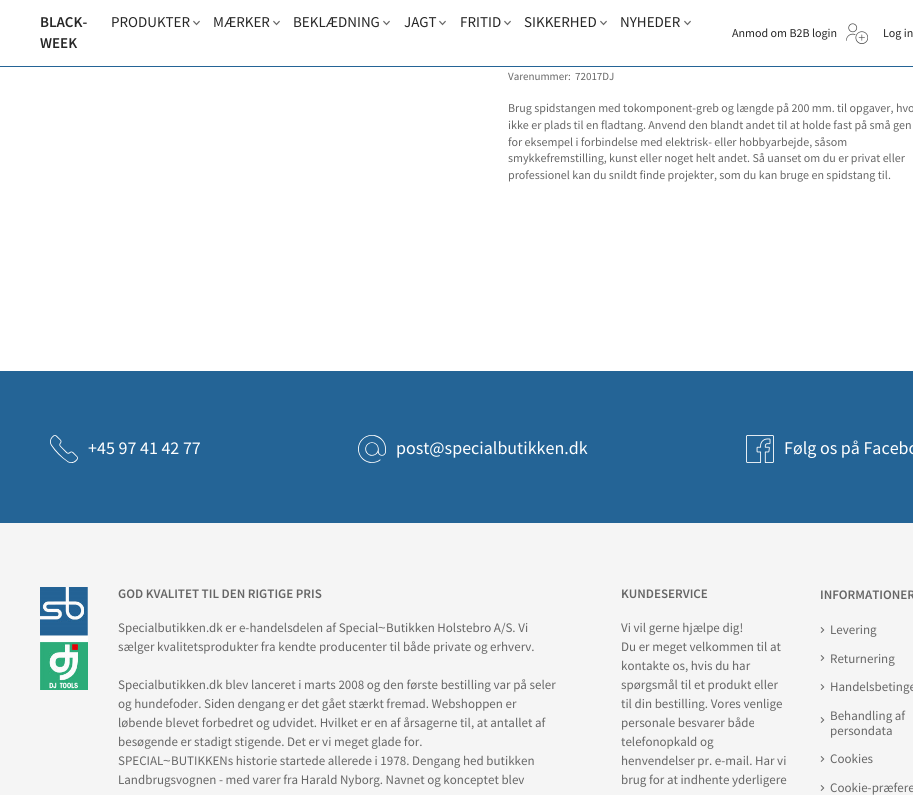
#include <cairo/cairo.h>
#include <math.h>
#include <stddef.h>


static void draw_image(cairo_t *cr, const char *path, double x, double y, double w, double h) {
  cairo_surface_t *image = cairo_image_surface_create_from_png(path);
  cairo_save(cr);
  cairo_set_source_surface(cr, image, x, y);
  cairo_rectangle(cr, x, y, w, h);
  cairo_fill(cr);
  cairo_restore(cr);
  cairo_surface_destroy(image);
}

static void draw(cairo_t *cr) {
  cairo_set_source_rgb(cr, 1, 1, 1);
  cairo_paint(cr);
  cairo_set_source_rgb(cr, 36 / 255.0, 100 / 255.0, 150 / 255.0);
  cairo_rectangle(cr, 0, 66, 913, 1);
  cairo_fill(cr);
  draw_image(cr, "images/1.png", 193, 20, 7, 6);
  draw_image(cr, "images/1.png", 273, 20, 7, 6);
  draw_image(cr, "images/1.png", 383, 20, 7, 6);
  draw_image(cr, "images/1.png", 439, 20, 7, 6);
  draw_image(cr, "images/1.png", 504, 20, 7, 6);
  draw_image(cr, "images/1.png", 600, 20, 7, 6);
  draw_image(cr, "images/1.png", 684, 20, 7, 6);
  draw_image(cr, "images/2.png", 846, 23, 22, 21);
  cairo_rectangle(cr, 0, 371, 913, 152);
  cairo_fill(cr);
  draw_image(cr, "images/3.png", 50, 435, 28, 28);
  draw_image(cr, "images/4.png", 358, 435, 28, 28);
  draw_image(cr, "images/5.png", 746, 435, 28, 28);
  cairo_set_source_rgb(cr, 245 / 255.0, 245 / 255.0, 245 / 255.0);
  cairo_rectangle(cr, 0, 523, 913, 272);
  cairo_fill(cr);
  draw_image(cr, "images/6.png", 40, 587, 48, 103);
  draw_image(cr, "images/7.png", 820, 627, 5, 6);
  draw_image(cr, "images/7.png", 820, 655, 5, 6);
  draw_image(cr, "images/7.png", 820, 684, 5, 6);
  draw_image(cr, "images/7.png", 820, 717, 5, 6);
  draw_image(cr, "images/7.png", 820, 756, 5, 6);
  draw_image(cr, "images/7.png", 820, 785, 5, 6);
  cairo_select_font_face(cr, "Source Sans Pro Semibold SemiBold", CAIRO_FONT_SLANT_NORMAL, CAIRO_FONT_WEIGHT_NORMAL);
  cairo_set_font_size(cr, 15);
  cairo_set_source_rgb(cr, 38 / 255.0, 38 / 255.0, 38 / 255.0);
  cairo_move_to(cr, 40, 27);
  cairo_show_text(cr, "BLACK-");
  cairo_move_to(cr, 40, 48);
  cairo_show_text(cr, "WEEK");
  cairo_select_font_face(cr, "Source Sans Pro", CAIRO_FONT_SLANT_NORMAL, CAIRO_FONT_WEIGHT_NORMAL);
  cairo_move_to(cr, 111, 27);
  cairo_show_text(cr, "PRODUKTER");
  cairo_move_to(cr, 213, 27);
  cairo_show_text(cr, "MÆRKER");
  cairo_move_to(cr, 293, 27);
  cairo_show_text(cr, "BEKLÆDNING");
  cairo_move_to(cr, 404, 27);
  cairo_show_text(cr, "JAGT");
  cairo_move_to(cr, 460, 27);
  cairo_show_text(cr, "FRITID");
  cairo_move_to(cr, 524, 27);
  cairo_show_text(cr, "SIKKERHED");
  cairo_move_to(cr, 620, 27);
  cairo_show_text(cr, "NYHEDER");
  cairo_set_font_size(cr, 12);
  cairo_move_to(cr, 732, 37);
  cairo_show_text(cr, "Anmod om B2B login");
  cairo_move_to(cr, 883, 37);
  cairo_show_text(cr, "Log in");
  cairo_set_font_size(cr, 11);
  cairo_set_source_rgb(cr, 102 / 255.0, 102 / 255.0, 102 / 255.0);
  cairo_move_to(cr, 508, 80);
  cairo_show_text(cr, "Varenummer:");
  cairo_move_to(cr, 575, 80);
  cairo_show_text(cr, "72017DJ");
  cairo_set_font_size(cr, 12);
  cairo_move_to(cr, 508, 112);
  cairo_show_text(cr, "Brug spidstangen med tokomponent-greb og længde på 200 mm. til opgaver, hvo");
  cairo_move_to(cr, 508, 129);
  cairo_show_text(cr, "ikke er plads til en fladtang. Anvend den blandt andet til at holde fast på små gen");
  cairo_move_to(cr, 508, 146);
  cairo_show_text(cr, "for eksempel i forbindelse med elektrisk- eller hobbyarbejde, såsom");
  cairo_move_to(cr, 508, 162);
  cairo_show_text(cr, "smykkefremstilling, kunst eller noget helt andet. Så uanset om du er privat eller");
  cairo_move_to(cr, 508, 179);
  cairo_show_text(cr, "professionel kan du snildt finde projekter, som du kan bruge en spidstang til.");
  cairo_set_font_size(cr, 18);
  cairo_set_source_rgb(cr, 1, 1, 1);
  cairo_move_to(cr, 88, 454);
  cairo_show_text(cr, "+45 97 41 42 77");
  cairo_move_to(cr, 396, 454);
  cairo_show_text(cr, "post@specialbutikken.dk");
  cairo_move_to(cr, 784, 454);
  cairo_show_text(cr, "Følg os på Facebo");
  cairo_select_font_face(cr, "Source Sans Pro Semibold SemiBold", CAIRO_FONT_SLANT_NORMAL, CAIRO_FONT_WEIGHT_NORMAL);
  cairo_set_font_size(cr, 13);
  cairo_set_source_rgb(cr, 102 / 255.0, 102 / 255.0, 102 / 255.0);
  cairo_move_to(cr, 118, 598);
  cairo_show_text(cr, "GOD KVALITET TIL DEN RIGTIGE PRIS");
  cairo_select_font_face(cr, "Source Sans Pro", CAIRO_FONT_SLANT_NORMAL, CAIRO_FONT_WEIGHT_NORMAL);
  cairo_move_to(cr, 118, 632);
  cairo_show_text(cr, "Specialbutikken.dk er e-handelsdelen af Special");
  cairo_select_font_face(cr, "Liberation Sans", CAIRO_FONT_SLANT_NORMAL, CAIRO_FONT_WEIGHT_NORMAL);
  cairo_move_to(cr, 378, 632);
  cairo_show_text(cr, "~");
  cairo_select_font_face(cr, "Source Sans Pro", CAIRO_FONT_SLANT_NORMAL, CAIRO_FONT_WEIGHT_NORMAL);
  cairo_move_to(cr, 386, 632);
  cairo_show_text(cr, "Butikken Holstebro A/S. Vi");
  cairo_move_to(cr, 118, 651);
  cairo_show_text(cr, "sælger kvalitetsprodukter fra kendte producenter til både private og erhverv.");
  cairo_move_to(cr, 118, 689);
  cairo_show_text(cr, "Specialbutikken.dk blev lanceret i marts 2008 og den første bestilling var på seler");
  cairo_move_to(cr, 118, 708);
  cairo_show_text(cr, "og hundefoder. Siden dengang er det gået stærkt fremad. Webshoppen er");
  cairo_move_to(cr, 118, 727);
  cairo_show_text(cr, "løbende blevet forbedret og udvidet. Hvilket er en af årsagerne til, at antallet af");
  cairo_move_to(cr, 118, 746);
  cairo_show_text(cr, "besøgende er stadigt stigende. Det er vi meget glade for.");
  cairo_move_to(cr, 118, 765);
  cairo_show_text(cr, "SPECIAL");
  cairo_select_font_face(cr, "Liberation Sans", CAIRO_FONT_SLANT_NORMAL, CAIRO_FONT_WEIGHT_NORMAL);
  cairo_move_to(cr, 163, 765);
  cairo_show_text(cr, "~");
  cairo_select_font_face(cr, "Source Sans Pro", CAIRO_FONT_SLANT_NORMAL, CAIRO_FONT_WEIGHT_NORMAL);
  cairo_move_to(cr, 171, 765);
  cairo_show_text(cr, "BUTIKKENs historie startede allerede i 1978. Dengang hed butikken");
  cairo_move_to(cr, 118, 784);
  cairo_show_text(cr, "Landbrugsvognen - med varer fra Harald Nyborg. Navnet og konceptet blev");
  cairo_select_font_face(cr, "Source Sans Pro Semibold SemiBold", CAIRO_FONT_SLANT_NORMAL, CAIRO_FONT_WEIGHT_NORMAL);
  cairo_move_to(cr, 621, 598);
  cairo_show_text(cr, "KUNDESERVICE");
  cairo_select_font_face(cr, "Source Sans Pro", CAIRO_FONT_SLANT_NORMAL, CAIRO_FONT_WEIGHT_NORMAL);
  cairo_move_to(cr, 621, 632);
  cairo_show_text(cr, "Vi vil gerne hjælpe dig!");
  cairo_move_to(cr, 621, 651);
  cairo_show_text(cr, "Du er meget velkommen til at");
  cairo_move_to(cr, 621, 670);
  cairo_show_text(cr, "kontakte os, hvis du har");
  cairo_move_to(cr, 621, 689);
  cairo_show_text(cr, "spørgsmål til et produkt eller");
  cairo_move_to(cr, 621, 708);
  cairo_show_text(cr, "til din bestilling. Vores venlige");
  cairo_move_to(cr, 621, 727);
  cairo_show_text(cr, "personale besvarer både");
  cairo_move_to(cr, 621, 746);
  cairo_show_text(cr, "telefonopkald og");
  cairo_move_to(cr, 621, 765);
  cairo_show_text(cr, "henvendelser pr. e-mail. Har vi");
  cairo_move_to(cr, 621, 784);
  cairo_show_text(cr, "brug for at indhente yderligere");
  cairo_select_font_face(cr, "Source Sans Pro Semibold SemiBold", CAIRO_FONT_SLANT_NORMAL, CAIRO_FONT_WEIGHT_NORMAL);
  cairo_move_to(cr, 820, 599);
  cairo_show_text(cr, "INFORMATIONER");
  cairo_select_font_face(cr, "Source Sans Pro", CAIRO_FONT_SLANT_NORMAL, CAIRO_FONT_WEIGHT_NORMAL);
  cairo_move_to(cr, 830, 634);
  cairo_show_text(cr, "Levering");
  cairo_move_to(cr, 830, 663);
  cairo_show_text(cr, "Returnering");
  cairo_move_to(cr, 830, 691);
  cairo_show_text(cr, "Handelsbetinge");
  cairo_move_to(cr, 830, 720);
  cairo_show_text(cr, "Behandling af");
  cairo_move_to(cr, 830, 735);
  cairo_show_text(cr, "persondata");
  cairo_move_to(cr, 830, 763);
  cairo_show_text(cr, "Cookies");
  cairo_move_to(cr, 830, 792);
  cairo_show_text(cr, "Cookie-præfere");
}

int main(void) {
  cairo_surface_t *surface = cairo_image_surface_create(CAIRO_FORMAT_RGB24, 913, 795);
  cairo_t *cr = cairo_create(surface);
  cairo_font_options_t *options = cairo_font_options_create();
  cairo_font_options_set_hint_metrics(options, CAIRO_HINT_METRICS_OFF);
  cairo_font_options_set_hint_style(options, CAIRO_HINT_STYLE_NONE);
  cairo_set_font_options(cr, options);
  cairo_set_miter_limit(cr, 4);
  draw(cr);
  cairo_surface_write_to_png(surface, "out.png");
  cairo_font_options_destroy(options);
  cairo_destroy(cr);
  cairo_surface_destroy(surface);
  return 0;
}
